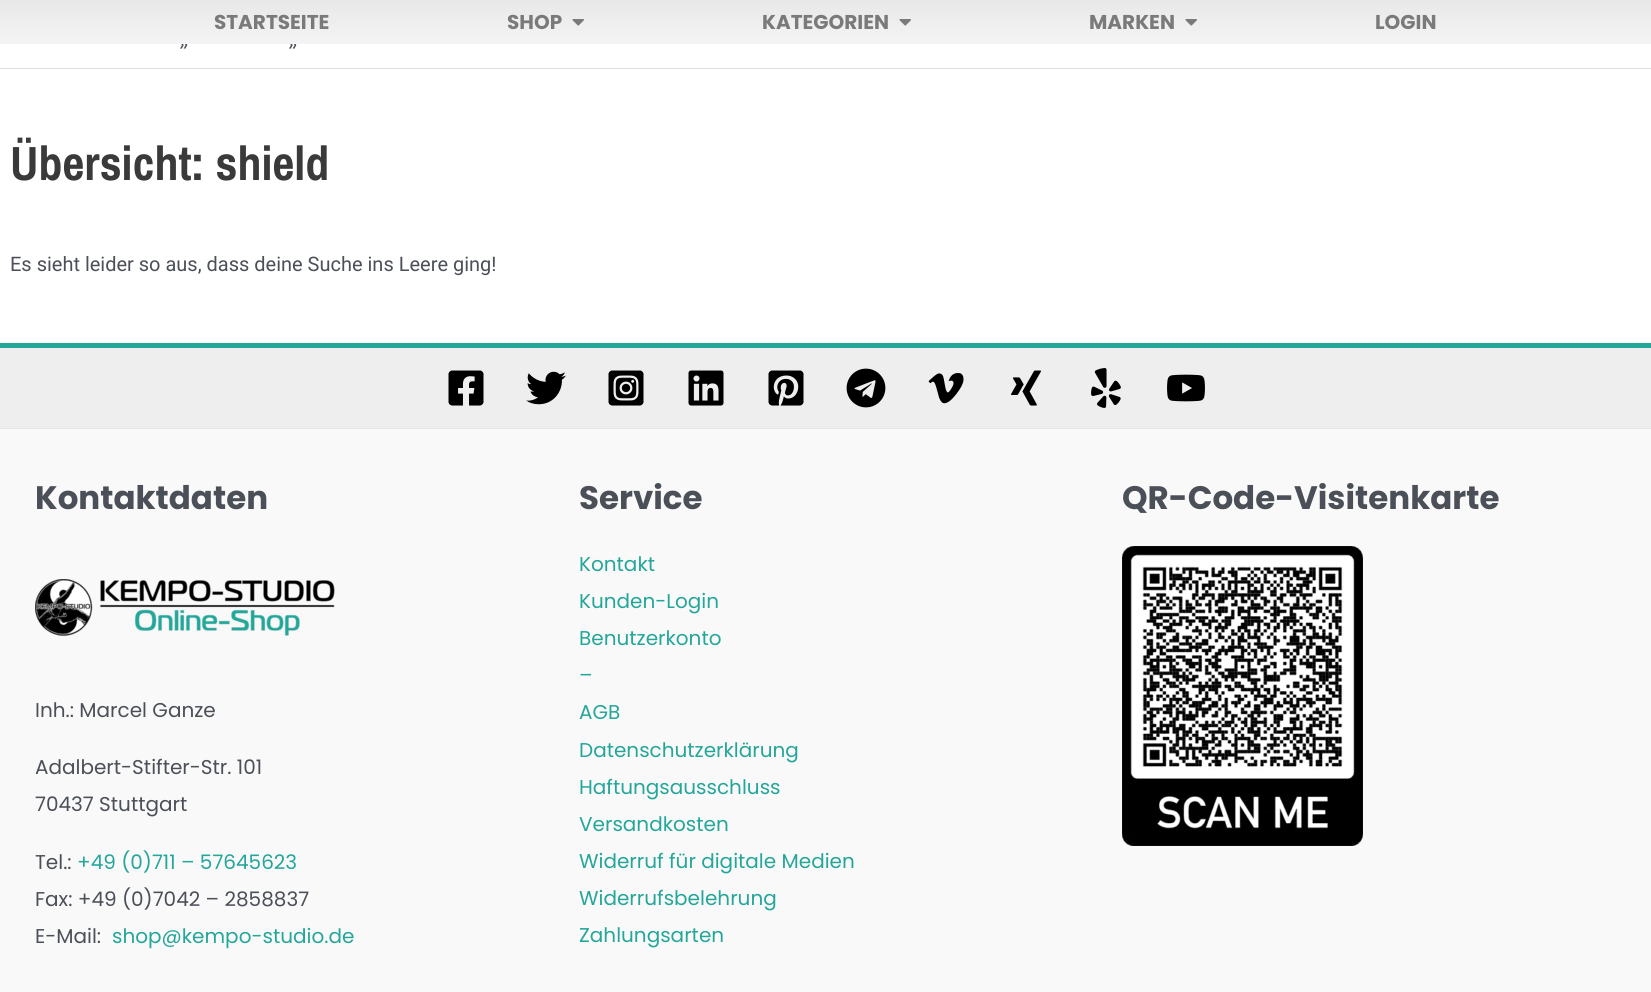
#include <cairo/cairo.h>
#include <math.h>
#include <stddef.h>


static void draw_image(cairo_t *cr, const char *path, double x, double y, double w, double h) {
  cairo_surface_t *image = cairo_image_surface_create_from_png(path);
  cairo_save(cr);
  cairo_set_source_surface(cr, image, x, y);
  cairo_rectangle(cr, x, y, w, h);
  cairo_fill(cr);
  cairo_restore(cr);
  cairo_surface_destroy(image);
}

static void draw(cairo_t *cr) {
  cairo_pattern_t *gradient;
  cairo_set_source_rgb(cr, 1, 1, 1);
  cairo_paint(cr);
  cairo_set_source_rgb(cr, 221 / 255.0, 221 / 255.0, 221 / 255.0);
  cairo_rectangle(cr, 0, 68, 1651, 1);
  cairo_fill(cr);
  cairo_set_source_rgb(cr, 238 / 255.0, 238 / 255.0, 238 / 255.0);
  cairo_rectangle(cr, 0, 348, 1651, 80);
  cairo_fill(cr);
  cairo_set_source_rgb(cr, 36 / 255.0, 166 / 255.0, 154 / 255.0);
  cairo_rectangle(cr, 0, 343, 1651, 5);
  cairo_fill(cr);
  draw_image(cr, "images/2.png", 448, 370, 36, 36);
  draw_image(cr, "images/3.png", 526, 371, 40, 34);
  draw_image(cr, "images/4.png", 608, 370, 36, 36);
  draw_image(cr, "images/5.png", 688, 370, 36, 36);
  draw_image(cr, "images/6.png", 768, 370, 36, 36);
  draw_image(cr, "images/7.png", 846, 368, 40, 40);
  draw_image(cr, "images/8.png", 928, 373, 36, 31);
  draw_image(cr, "images/9.png", 1011, 370, 30, 36);
  draw_image(cr, "images/10.png", 1091, 368, 30, 40);
  draw_image(cr, "images/11.png", 1167, 374, 38, 28);
  cairo_set_source_rgb(cr, 249 / 255.0, 249 / 255.0, 249 / 255.0);
  cairo_rectangle(cr, 0, 429, 1651, 563);
  cairo_fill(cr);
  cairo_set_source_rgb(cr, 229 / 255.0, 229 / 255.0, 229 / 255.0);
  cairo_rectangle(cr, 0, 428, 1651, 1);
  cairo_fill(cr);
  draw_image(cr, "images/12.png", 35, 579, 300, 57);
  draw_image(cr, "images/13.png", 1122, 546, 241, 300);
  cairo_select_font_face(cr, "Poppins", CAIRO_FONT_SLANT_NORMAL, CAIRO_FONT_WEIGHT_NORMAL);
  cairo_set_font_size(cr, 20);
  cairo_set_source_rgb(cr, 75 / 255.0, 79 / 255.0, 88 / 255.0);
  cairo_move_to(cr, 179, 51);
  cairo_show_text(cr, "»");
  cairo_move_to(cr, 288, 51);
  cairo_show_text(cr, "»");
  gradient = cairo_pattern_create_linear(826, 0, 826, 44);
  cairo_pattern_add_color_stop_rgba(gradient, 0, 232 / 255.0, 232 / 255.0, 232 / 255.0, 1);
  cairo_pattern_add_color_stop_rgba(gradient, 1, 244 / 255.0, 244 / 255.0, 244 / 255.0, 1);
  cairo_set_source(cr, gradient);
  cairo_pattern_destroy(gradient);
  cairo_rectangle(cr, 0, 0, 1651, 44);
  cairo_fill(cr);
  cairo_select_font_face(cr, "Poppins", CAIRO_FONT_SLANT_NORMAL, CAIRO_FONT_WEIGHT_BOLD);
  cairo_set_source_rgb(cr, 122 / 255.0, 122 / 255.0, 122 / 255.0);
  cairo_move_to(cr, 1375, 29);
  cairo_show_text(cr, "LOGIN");
  draw_image(cr, "images/1.png", 1185, 19, 12, 7);
  cairo_move_to(cr, 1089, 29);
  cairo_show_text(cr, "MARKEN");
  draw_image(cr, "images/1.png", 899, 19, 12, 7);
  cairo_move_to(cr, 762, 29);
  cairo_show_text(cr, "KATEGORIEN");
  draw_image(cr, "images/1.png", 572, 19, 12, 7);
  cairo_move_to(cr, 507, 29);
  cairo_show_text(cr, "SHOP");
  cairo_move_to(cr, 214, 29);
  cairo_show_text(cr, "STARTSEITE");
  cairo_select_font_face(cr, "Archivo Narrow", CAIRO_FONT_SLANT_NORMAL, CAIRO_FONT_WEIGHT_BOLD);
  cairo_set_font_size(cr, 48);
  cairo_set_source_rgb(cr, 58 / 255.0, 58 / 255.0, 58 / 255.0);
  cairo_move_to(cr, 10, 180);
  cairo_show_text(cr, "Übersicht: shield");
  cairo_select_font_face(cr, "Roboto", CAIRO_FONT_SLANT_NORMAL, CAIRO_FONT_WEIGHT_NORMAL);
  cairo_set_font_size(cr, 20);
  cairo_set_source_rgb(cr, 75 / 255.0, 79 / 255.0, 88 / 255.0);
  cairo_move_to(cr, 10, 271);
  cairo_show_text(cr, "Es sieht leider so aus, dass deine Suche ins Leere ging!");
  cairo_select_font_face(cr, "Poppins", CAIRO_FONT_SLANT_NORMAL, CAIRO_FONT_WEIGHT_BOLD);
  cairo_set_font_size(cr, 32.5);
  cairo_move_to(cr, 35, 509);
  cairo_show_text(cr, "Kontaktdaten");
  cairo_select_font_face(cr, "Poppins", CAIRO_FONT_SLANT_NORMAL, CAIRO_FONT_WEIGHT_NORMAL);
  cairo_set_font_size(cr, 20);
  cairo_move_to(cr, 35, 717);
  cairo_show_text(cr, "Inh.: Marcel Ganze");
  cairo_move_to(cr, 35, 774);
  cairo_show_text(cr, "Adalbert-Stifter-Str. 101");
  cairo_move_to(cr, 35, 811);
  cairo_show_text(cr, "70437 Stuttgart");
  cairo_move_to(cr, 35, 869);
  cairo_show_text(cr, "Tel.:");
  cairo_set_source_rgb(cr, 36 / 255.0, 166 / 255.0, 154 / 255.0);
  cairo_move_to(cr, 77, 869);
  cairo_show_text(cr, "+49 (0)711 – 57645623");
  cairo_set_source_rgb(cr, 75 / 255.0, 79 / 255.0, 88 / 255.0);
  cairo_move_to(cr, 35, 906);
  cairo_show_text(cr, "Fax: +49 (0)7042 – 2858837");
  cairo_move_to(cr, 35, 943);
  cairo_show_text(cr, "E-Mail:");
  cairo_set_source_rgb(cr, 36 / 255.0, 166 / 255.0, 154 / 255.0);
  cairo_move_to(cr, 112, 943);
  cairo_show_text(cr, "shop@kempo-studio.de");
  cairo_select_font_face(cr, "Poppins", CAIRO_FONT_SLANT_NORMAL, CAIRO_FONT_WEIGHT_BOLD);
  cairo_set_font_size(cr, 32.5);
  cairo_set_source_rgb(cr, 75 / 255.0, 79 / 255.0, 88 / 255.0);
  cairo_move_to(cr, 579, 509);
  cairo_show_text(cr, "Service");
  cairo_select_font_face(cr, "Poppins", CAIRO_FONT_SLANT_NORMAL, CAIRO_FONT_WEIGHT_NORMAL);
  cairo_set_font_size(cr, 20);
  cairo_set_source_rgb(cr, 36 / 255.0, 166 / 255.0, 154 / 255.0);
  cairo_move_to(cr, 579, 571);
  cairo_show_text(cr, "Kontakt");
  cairo_move_to(cr, 579, 608);
  cairo_show_text(cr, "Kunden-Login");
  cairo_move_to(cr, 579, 645);
  cairo_show_text(cr, "Benutzerkonto");
  cairo_move_to(cr, 579, 682);
  cairo_show_text(cr, "–");
  cairo_move_to(cr, 579, 719);
  cairo_show_text(cr, "AGB");
  cairo_move_to(cr, 579, 757);
  cairo_show_text(cr, "Datenschutzerklärung");
  cairo_move_to(cr, 579, 794);
  cairo_show_text(cr, "Haftungsausschluss");
  cairo_move_to(cr, 579, 831);
  cairo_show_text(cr, "Versandkosten");
  cairo_move_to(cr, 579, 868);
  cairo_show_text(cr, "Widerruf für digitale Medien");
  cairo_move_to(cr, 579, 905);
  cairo_show_text(cr, "Widerrufsbelehrung");
  cairo_move_to(cr, 579, 942);
  cairo_show_text(cr, "Zahlungsarten");
  cairo_select_font_face(cr, "Poppins", CAIRO_FONT_SLANT_NORMAL, CAIRO_FONT_WEIGHT_BOLD);
  cairo_set_font_size(cr, 32.5);
  cairo_set_source_rgb(cr, 75 / 255.0, 79 / 255.0, 88 / 255.0);
  cairo_move_to(cr, 1122, 509);
  cairo_show_text(cr, "QR-Code-Visitenkarte");
}

int main(void) {
  cairo_surface_t *surface = cairo_image_surface_create(CAIRO_FORMAT_RGB24, 1651, 992);
  cairo_t *cr = cairo_create(surface);
  cairo_font_options_t *options = cairo_font_options_create();
  cairo_font_options_set_hint_metrics(options, CAIRO_HINT_METRICS_OFF);
  cairo_font_options_set_hint_style(options, CAIRO_HINT_STYLE_NONE);
  cairo_set_font_options(cr, options);
  cairo_set_miter_limit(cr, 4);
  draw(cr);
  cairo_surface_write_to_png(surface, "out.png");
  cairo_font_options_destroy(options);
  cairo_destroy(cr);
  cairo_surface_destroy(surface);
  return 0;
}
